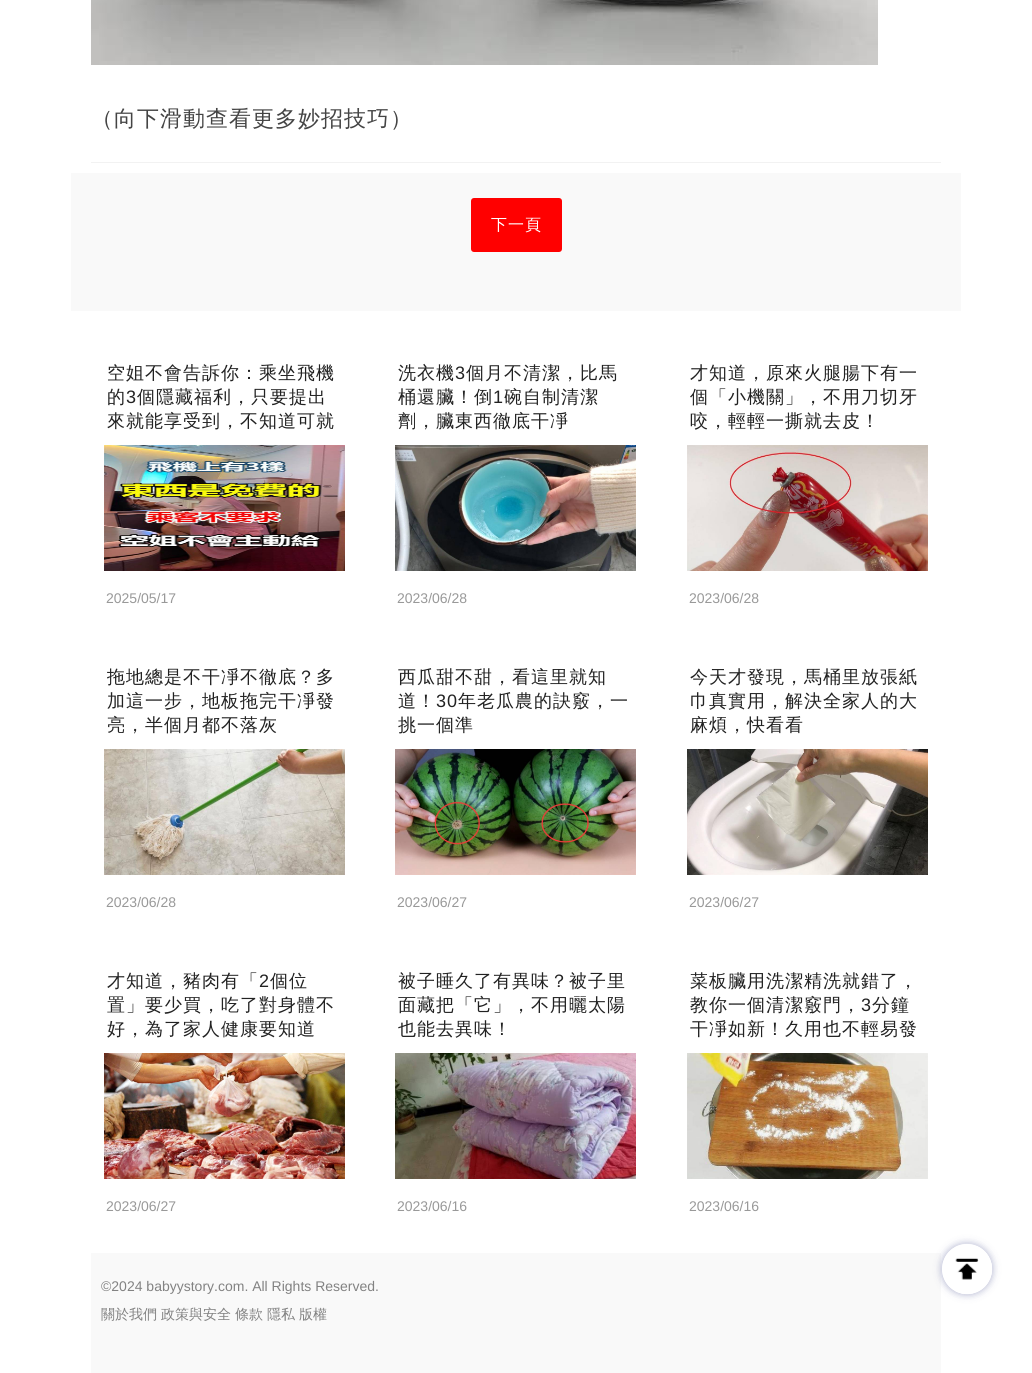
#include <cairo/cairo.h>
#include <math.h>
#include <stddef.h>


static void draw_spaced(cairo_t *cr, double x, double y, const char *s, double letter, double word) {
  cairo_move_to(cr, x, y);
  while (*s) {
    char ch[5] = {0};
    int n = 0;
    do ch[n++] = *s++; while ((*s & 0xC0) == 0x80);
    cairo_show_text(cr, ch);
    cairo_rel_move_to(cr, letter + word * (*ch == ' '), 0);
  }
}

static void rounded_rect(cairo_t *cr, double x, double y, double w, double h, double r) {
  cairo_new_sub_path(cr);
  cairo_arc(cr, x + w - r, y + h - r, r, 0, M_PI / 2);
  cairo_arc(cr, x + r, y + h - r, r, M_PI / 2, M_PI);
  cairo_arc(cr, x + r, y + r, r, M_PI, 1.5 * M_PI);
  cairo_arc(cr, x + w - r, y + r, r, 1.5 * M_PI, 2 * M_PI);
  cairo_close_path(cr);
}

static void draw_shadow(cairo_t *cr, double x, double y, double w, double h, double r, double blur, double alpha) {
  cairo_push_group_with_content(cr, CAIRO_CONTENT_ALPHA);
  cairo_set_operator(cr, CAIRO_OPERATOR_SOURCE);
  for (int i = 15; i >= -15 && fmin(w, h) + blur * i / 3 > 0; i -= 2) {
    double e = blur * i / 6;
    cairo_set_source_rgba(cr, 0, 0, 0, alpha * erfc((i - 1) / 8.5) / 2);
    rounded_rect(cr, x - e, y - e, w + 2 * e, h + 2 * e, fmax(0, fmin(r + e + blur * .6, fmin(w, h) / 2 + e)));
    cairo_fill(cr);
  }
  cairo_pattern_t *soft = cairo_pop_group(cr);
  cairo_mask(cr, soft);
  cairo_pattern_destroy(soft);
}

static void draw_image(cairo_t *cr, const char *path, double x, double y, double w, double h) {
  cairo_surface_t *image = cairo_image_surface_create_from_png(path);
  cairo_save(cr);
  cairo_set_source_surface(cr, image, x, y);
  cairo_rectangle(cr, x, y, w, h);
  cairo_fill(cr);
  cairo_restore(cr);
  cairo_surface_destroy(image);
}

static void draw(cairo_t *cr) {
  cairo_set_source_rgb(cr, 1, 1, 1);
  cairo_paint(cr);
  draw_image(cr, "images/1.png", 91, 0, 787, 65);
  cairo_set_source_rgb(cr, 242 / 255.0, 242 / 255.0, 242 / 255.0);
  cairo_rectangle(cr, 91, 162, 850, 1);
  cairo_fill(cr);
  cairo_set_source_rgb(cr, 249 / 255.0, 249 / 255.0, 249 / 255.0);
  cairo_rectangle(cr, 71, 173, 890, 138);
  cairo_fill(cr);
  cairo_set_source_rgb(cr, 1, 0, 0);
  rounded_rect(cr, 471, 198, 91, 54, 3);
  cairo_fill(cr);
  draw_image(cr, "images/2.png", 104, 445, 241, 126);
  draw_image(cr, "images/3.png", 395, 445, 241, 126);
  draw_image(cr, "images/4.png", 687, 445, 241, 126);
  draw_image(cr, "images/5.png", 104, 749, 241, 126);
  draw_image(cr, "images/6.png", 395, 749, 241, 126);
  draw_image(cr, "images/7.png", 687, 749, 241, 126);
  draw_image(cr, "images/8.png", 104, 1053, 241, 126);
  draw_image(cr, "images/9.png", 395, 1053, 241, 126);
  draw_image(cr, "images/10.png", 687, 1053, 241, 126);
  cairo_set_source_rgb(cr, 249 / 255.0, 249 / 255.0, 249 / 255.0);
  cairo_rectangle(cr, 91, 1253, 850, 120);
  cairo_fill(cr);
  cairo_save(cr);
  cairo_set_fill_rule(cr, CAIRO_FILL_RULE_EVEN_ODD);
  cairo_new_path(cr);
  cairo_move_to(cr, 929, 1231);
  cairo_line_to(cr, 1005, 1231);
  cairo_line_to(cr, 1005, 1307);
  cairo_line_to(cr, 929, 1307);
  cairo_close_path(cr);
  cairo_move_to(cr, 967, 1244);
  cairo_curve_to(cr, 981, 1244, 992, 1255, 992, 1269);
  cairo_curve_to(cr, 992, 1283, 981, 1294, 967, 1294);
  cairo_curve_to(cr, 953, 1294, 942, 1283, 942, 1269);
  cairo_curve_to(cr, 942, 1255, 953, 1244, 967, 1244);
  cairo_close_path(cr);
  cairo_clip(cr);
  cairo_set_source_rgb(cr, 34 / 255.0, 42 / 255.0, 119 / 255.0);
  draw_shadow(cr, 942, 1244, 50, 50, 25, 4, 0.4);
  cairo_restore(cr);
  draw_image(cr, "images/11.png", 955, 1243, 38, 52);
  cairo_select_font_face(cr, "WenQuanYi Zen Hei Medium", CAIRO_FONT_SLANT_NORMAL, CAIRO_FONT_WEIGHT_NORMAL);
  cairo_set_font_size(cr, 22);
  cairo_set_source_rgb(cr, 68 / 255.0, 68 / 255.0, 68 / 255.0);
  draw_spaced(cr, 91, 126, "（向下滑動查看更多妙招技巧）", 1, 0);
  cairo_set_font_size(cr, 16);
  cairo_set_source_rgb(cr, 1, 1, 1);
  draw_spaced(cr, 491, 230, "下一頁", 1, 0);
  cairo_set_font_size(cr, 18);
  cairo_set_source_rgb(cr, 34 / 255.0, 34 / 255.0, 34 / 255.0);
  draw_spaced(cr, 107, 379, "空姐不會告訴你：乘坐飛機", 1, 0);
  draw_spaced(cr, 107, 403, "的", 1, 0);
  cairo_select_font_face(cr, "Liberation Sans", CAIRO_FONT_SLANT_NORMAL, CAIRO_FONT_WEIGHT_NORMAL);
  draw_spaced(cr, 126, 403, "3", 1, 0);
  cairo_select_font_face(cr, "WenQuanYi Zen Hei Medium", CAIRO_FONT_SLANT_NORMAL, CAIRO_FONT_WEIGHT_NORMAL);
  draw_spaced(cr, 137, 403, "個隱藏福利，只要提出", 1, 0);
  draw_spaced(cr, 107, 427, "來就能享受到，不知道可就", 1, 0);
  cairo_select_font_face(cr, "Liberation Sans", CAIRO_FONT_SLANT_NORMAL, CAIRO_FONT_WEIGHT_NORMAL);
  cairo_set_font_size(cr, 14);
  cairo_set_source_rgb(cr, 153 / 255.0, 153 / 255.0, 153 / 255.0);
  cairo_move_to(cr, 106, 603);
  cairo_show_text(cr, "2025/05/17");
  cairo_select_font_face(cr, "WenQuanYi Zen Hei Medium", CAIRO_FONT_SLANT_NORMAL, CAIRO_FONT_WEIGHT_NORMAL);
  cairo_set_font_size(cr, 18);
  cairo_set_source_rgb(cr, 34 / 255.0, 34 / 255.0, 34 / 255.0);
  draw_spaced(cr, 398, 379, "洗衣機", 1, 0);
  cairo_select_font_face(cr, "Liberation Sans", CAIRO_FONT_SLANT_NORMAL, CAIRO_FONT_WEIGHT_NORMAL);
  draw_spaced(cr, 455, 379, "3", 1, 0);
  cairo_select_font_face(cr, "WenQuanYi Zen Hei Medium", CAIRO_FONT_SLANT_NORMAL, CAIRO_FONT_WEIGHT_NORMAL);
  draw_spaced(cr, 466, 379, "個月不清潔，比馬", 1, 0);
  draw_spaced(cr, 398, 403, "桶還臟！倒", 1, 0);
  cairo_select_font_face(cr, "Liberation Sans", CAIRO_FONT_SLANT_NORMAL, CAIRO_FONT_WEIGHT_NORMAL);
  draw_spaced(cr, 493, 403, "1", 1, 0);
  cairo_select_font_face(cr, "WenQuanYi Zen Hei Medium", CAIRO_FONT_SLANT_NORMAL, CAIRO_FONT_WEIGHT_NORMAL);
  draw_spaced(cr, 504, 403, "碗自制清潔", 1, 0);
  draw_spaced(cr, 398, 427, "劑，臟東西徹底干凈", 1, 0);
  cairo_select_font_face(cr, "Liberation Sans", CAIRO_FONT_SLANT_NORMAL, CAIRO_FONT_WEIGHT_NORMAL);
  cairo_set_font_size(cr, 14);
  cairo_set_source_rgb(cr, 153 / 255.0, 153 / 255.0, 153 / 255.0);
  cairo_move_to(cr, 397, 603);
  cairo_show_text(cr, "2023/06/28");
  cairo_select_font_face(cr, "WenQuanYi Zen Hei Medium", CAIRO_FONT_SLANT_NORMAL, CAIRO_FONT_WEIGHT_NORMAL);
  cairo_set_font_size(cr, 18);
  cairo_set_source_rgb(cr, 34 / 255.0, 34 / 255.0, 34 / 255.0);
  draw_spaced(cr, 690, 379, "才知道，原來火腿腸下有一", 1, 0);
  draw_spaced(cr, 690, 403, "個「小機關」，不用刀切牙", 1, 0);
  draw_spaced(cr, 690, 427, "咬，輕輕一撕就去皮！", 1, 0);
  cairo_select_font_face(cr, "Liberation Sans", CAIRO_FONT_SLANT_NORMAL, CAIRO_FONT_WEIGHT_NORMAL);
  cairo_set_font_size(cr, 14);
  cairo_set_source_rgb(cr, 153 / 255.0, 153 / 255.0, 153 / 255.0);
  cairo_move_to(cr, 689, 603);
  cairo_show_text(cr, "2023/06/28");
  cairo_select_font_face(cr, "WenQuanYi Zen Hei Medium", CAIRO_FONT_SLANT_NORMAL, CAIRO_FONT_WEIGHT_NORMAL);
  cairo_set_font_size(cr, 18);
  cairo_set_source_rgb(cr, 34 / 255.0, 34 / 255.0, 34 / 255.0);
  draw_spaced(cr, 107, 683, "拖地總是不干凈不徹底？多", 1, 0);
  draw_spaced(cr, 107, 707, "加這一步，地板拖完干凈發", 1, 0);
  draw_spaced(cr, 107, 731, "亮，半個月都不落灰", 1, 0);
  cairo_select_font_face(cr, "Liberation Sans", CAIRO_FONT_SLANT_NORMAL, CAIRO_FONT_WEIGHT_NORMAL);
  cairo_set_font_size(cr, 14);
  cairo_set_source_rgb(cr, 153 / 255.0, 153 / 255.0, 153 / 255.0);
  cairo_move_to(cr, 106, 907);
  cairo_show_text(cr, "2023/06/28");
  cairo_select_font_face(cr, "WenQuanYi Zen Hei Medium", CAIRO_FONT_SLANT_NORMAL, CAIRO_FONT_WEIGHT_NORMAL);
  cairo_set_font_size(cr, 18);
  cairo_set_source_rgb(cr, 34 / 255.0, 34 / 255.0, 34 / 255.0);
  draw_spaced(cr, 398, 683, "西瓜甜不甜，看這里就知", 1, 0);
  draw_spaced(cr, 398, 707, "道！", 1, 0);
  cairo_select_font_face(cr, "Liberation Sans", CAIRO_FONT_SLANT_NORMAL, CAIRO_FONT_WEIGHT_NORMAL);
  draw_spaced(cr, 436, 707, "30", 1, 0);
  cairo_select_font_face(cr, "WenQuanYi Zen Hei Medium", CAIRO_FONT_SLANT_NORMAL, CAIRO_FONT_WEIGHT_NORMAL);
  draw_spaced(cr, 458, 707, "年老瓜農的訣竅，一", 1, 0);
  draw_spaced(cr, 398, 731, "挑一個準", 1, 0);
  cairo_select_font_face(cr, "Liberation Sans", CAIRO_FONT_SLANT_NORMAL, CAIRO_FONT_WEIGHT_NORMAL);
  cairo_set_font_size(cr, 14);
  cairo_set_source_rgb(cr, 153 / 255.0, 153 / 255.0, 153 / 255.0);
  cairo_move_to(cr, 397, 907);
  cairo_show_text(cr, "2023/06/27");
  cairo_select_font_face(cr, "WenQuanYi Zen Hei Medium", CAIRO_FONT_SLANT_NORMAL, CAIRO_FONT_WEIGHT_NORMAL);
  cairo_set_font_size(cr, 18);
  cairo_set_source_rgb(cr, 34 / 255.0, 34 / 255.0, 34 / 255.0);
  draw_spaced(cr, 690, 683, "今天才發現，馬桶里放張紙", 1, 0);
  draw_spaced(cr, 690, 707, "巾真實用，解決全家人的大", 1, 0);
  draw_spaced(cr, 690, 731, "麻煩，快看看", 1, 0);
  cairo_select_font_face(cr, "Liberation Sans", CAIRO_FONT_SLANT_NORMAL, CAIRO_FONT_WEIGHT_NORMAL);
  cairo_set_font_size(cr, 14);
  cairo_set_source_rgb(cr, 153 / 255.0, 153 / 255.0, 153 / 255.0);
  cairo_move_to(cr, 689, 907);
  cairo_show_text(cr, "2023/06/27");
  cairo_select_font_face(cr, "WenQuanYi Zen Hei Medium", CAIRO_FONT_SLANT_NORMAL, CAIRO_FONT_WEIGHT_NORMAL);
  cairo_set_font_size(cr, 18);
  cairo_set_source_rgb(cr, 34 / 255.0, 34 / 255.0, 34 / 255.0);
  draw_spaced(cr, 107, 987, "才知道，豬肉有「", 1, 0);
  cairo_select_font_face(cr, "Liberation Sans", CAIRO_FONT_SLANT_NORMAL, CAIRO_FONT_WEIGHT_NORMAL);
  draw_spaced(cr, 259, 987, "2", 1, 0);
  cairo_select_font_face(cr, "WenQuanYi Zen Hei Medium", CAIRO_FONT_SLANT_NORMAL, CAIRO_FONT_WEIGHT_NORMAL);
  draw_spaced(cr, 270, 987, "個位", 1, 0);
  draw_spaced(cr, 107, 1011, "置」要少買，吃了對身體不", 1, 0);
  draw_spaced(cr, 107, 1035, "好，為了家人健康要知道", 1, 0);
  cairo_select_font_face(cr, "Liberation Sans", CAIRO_FONT_SLANT_NORMAL, CAIRO_FONT_WEIGHT_NORMAL);
  cairo_set_font_size(cr, 14);
  cairo_set_source_rgb(cr, 153 / 255.0, 153 / 255.0, 153 / 255.0);
  cairo_move_to(cr, 106, 1211);
  cairo_show_text(cr, "2023/06/27");
  cairo_select_font_face(cr, "WenQuanYi Zen Hei Medium", CAIRO_FONT_SLANT_NORMAL, CAIRO_FONT_WEIGHT_NORMAL);
  cairo_set_font_size(cr, 18);
  cairo_set_source_rgb(cr, 34 / 255.0, 34 / 255.0, 34 / 255.0);
  draw_spaced(cr, 398, 987, "被子睡久了有異味？被子里", 1, 0);
  draw_spaced(cr, 398, 1011, "面藏把「它」，不用曬太陽", 1, 0);
  draw_spaced(cr, 398, 1035, "也能去異味！", 1, 0);
  cairo_select_font_face(cr, "Liberation Sans", CAIRO_FONT_SLANT_NORMAL, CAIRO_FONT_WEIGHT_NORMAL);
  cairo_set_font_size(cr, 14);
  cairo_set_source_rgb(cr, 153 / 255.0, 153 / 255.0, 153 / 255.0);
  cairo_move_to(cr, 397, 1211);
  cairo_show_text(cr, "2023/06/16");
  cairo_select_font_face(cr, "WenQuanYi Zen Hei Medium", CAIRO_FONT_SLANT_NORMAL, CAIRO_FONT_WEIGHT_NORMAL);
  cairo_set_font_size(cr, 18);
  cairo_set_source_rgb(cr, 34 / 255.0, 34 / 255.0, 34 / 255.0);
  draw_spaced(cr, 690, 987, "菜板臟用洗潔精洗就錯了，", 1, 0);
  draw_spaced(cr, 690, 1011, "教你一個清潔竅門，", 1, 0);
  cairo_select_font_face(cr, "Liberation Sans", CAIRO_FONT_SLANT_NORMAL, CAIRO_FONT_WEIGHT_NORMAL);
  draw_spaced(cr, 861, 1011, "3", 1, 0);
  cairo_select_font_face(cr, "WenQuanYi Zen Hei Medium", CAIRO_FONT_SLANT_NORMAL, CAIRO_FONT_WEIGHT_NORMAL);
  draw_spaced(cr, 872, 1011, "分鐘", 1, 0);
  draw_spaced(cr, 690, 1035, "干凈如新！久用也不輕易發", 1, 0);
  cairo_select_font_face(cr, "Liberation Sans", CAIRO_FONT_SLANT_NORMAL, CAIRO_FONT_WEIGHT_NORMAL);
  cairo_set_font_size(cr, 14);
  cairo_set_source_rgb(cr, 153 / 255.0, 153 / 255.0, 153 / 255.0);
  cairo_move_to(cr, 689, 1211);
  cairo_show_text(cr, "2023/06/16");
  cairo_set_source_rgb(cr, 130 / 255.0, 130 / 255.0, 130 / 255.0);
  cairo_move_to(cr, 101, 1291);
  cairo_show_text(cr, "©2024 babyystory.com. All Rights Reserved.");
  cairo_select_font_face(cr, "WenQuanYi Zen Hei Medium", CAIRO_FONT_SLANT_NORMAL, CAIRO_FONT_WEIGHT_NORMAL);
  cairo_move_to(cr, 101, 1319);
  cairo_show_text(cr, "關於我們");
  cairo_move_to(cr, 161, 1319);
  cairo_show_text(cr, "政策與安全");
  cairo_move_to(cr, 235, 1319);
  cairo_show_text(cr, "條款");
  cairo_move_to(cr, 267, 1319);
  cairo_show_text(cr, "隱私");
  cairo_move_to(cr, 299, 1319);
  cairo_show_text(cr, "版權");
}

int main(void) {
  cairo_surface_t *surface = cairo_image_surface_create(CAIRO_FORMAT_RGB24, 1032, 1373);
  cairo_t *cr = cairo_create(surface);
  cairo_font_options_t *options = cairo_font_options_create();
  cairo_font_options_set_hint_metrics(options, CAIRO_HINT_METRICS_OFF);
  cairo_font_options_set_hint_style(options, CAIRO_HINT_STYLE_NONE);
  cairo_set_font_options(cr, options);
  cairo_set_miter_limit(cr, 4);
  draw(cr);
  cairo_surface_write_to_png(surface, "out.png");
  cairo_font_options_destroy(options);
  cairo_destroy(cr);
  cairo_surface_destroy(surface);
  return 0;
}
